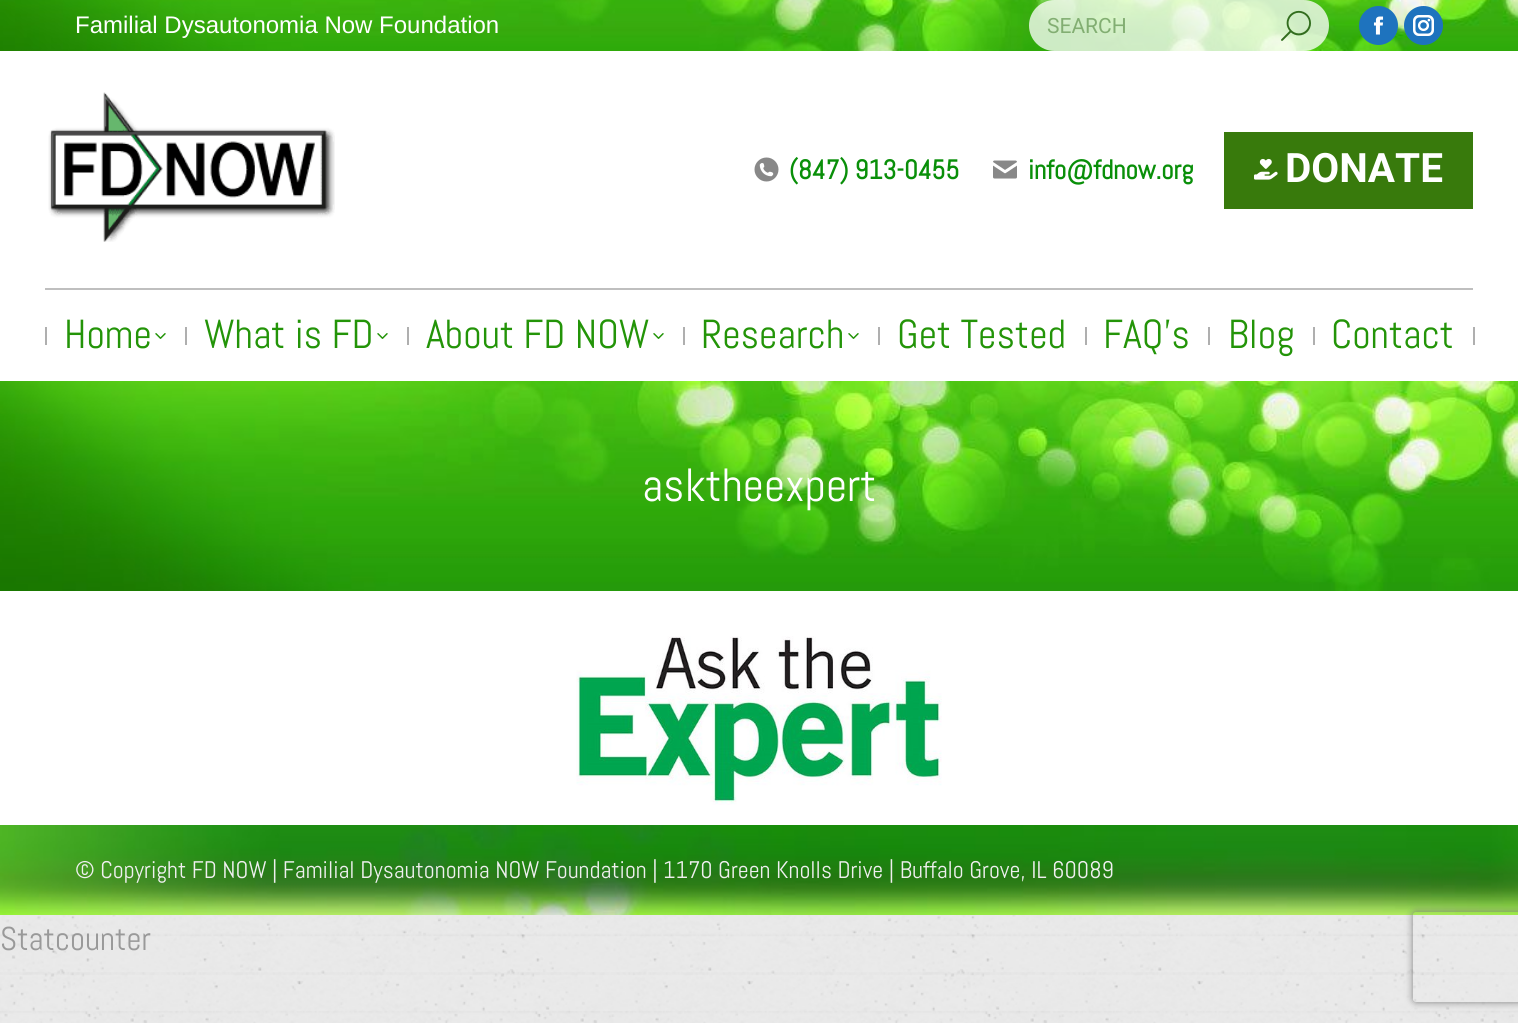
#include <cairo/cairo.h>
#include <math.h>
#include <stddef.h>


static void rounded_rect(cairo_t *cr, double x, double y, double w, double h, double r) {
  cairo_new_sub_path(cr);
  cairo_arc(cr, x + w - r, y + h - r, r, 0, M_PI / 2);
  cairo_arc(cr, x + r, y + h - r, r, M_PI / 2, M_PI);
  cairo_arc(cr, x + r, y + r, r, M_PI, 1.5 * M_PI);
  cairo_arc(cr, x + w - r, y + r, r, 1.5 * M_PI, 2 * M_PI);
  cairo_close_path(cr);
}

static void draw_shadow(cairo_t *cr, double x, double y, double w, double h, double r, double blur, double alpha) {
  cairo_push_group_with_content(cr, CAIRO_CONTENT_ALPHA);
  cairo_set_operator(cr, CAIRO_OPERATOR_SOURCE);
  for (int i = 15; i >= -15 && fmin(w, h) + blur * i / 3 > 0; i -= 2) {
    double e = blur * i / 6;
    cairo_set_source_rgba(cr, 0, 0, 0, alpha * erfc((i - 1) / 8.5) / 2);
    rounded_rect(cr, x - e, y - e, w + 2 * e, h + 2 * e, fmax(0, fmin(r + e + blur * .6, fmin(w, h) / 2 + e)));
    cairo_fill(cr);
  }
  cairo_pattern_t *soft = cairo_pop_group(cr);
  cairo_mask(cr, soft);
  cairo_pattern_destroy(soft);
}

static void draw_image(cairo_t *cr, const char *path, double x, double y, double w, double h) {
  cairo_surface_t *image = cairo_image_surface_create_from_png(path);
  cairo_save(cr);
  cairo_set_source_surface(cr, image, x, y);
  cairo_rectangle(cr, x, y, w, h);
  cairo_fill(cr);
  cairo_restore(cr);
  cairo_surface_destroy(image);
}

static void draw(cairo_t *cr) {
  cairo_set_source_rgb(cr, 1, 1, 1);
  cairo_paint(cr);
  draw_image(cr, "images/1.png", 0, 915, 1518, 108);
  draw_image(cr, "images/2.png", 0, 0, 1518, 51);
  cairo_set_source_rgba(cr, 1, 1, 1, 0.76);
  rounded_rect(cr, 1029, 0, 300, 51, 25.5);
  cairo_fill(cr);
  draw_image(cr, "images/3.png", 1281, 10, 30, 31);
  cairo_set_source_rgb(cr, 30 / 255.0, 115 / 255.0, 190 / 255.0);
  cairo_arc(cr, 1378.5, 25.5, 19.5, 0, 2 * M_PI);
  cairo_fill(cr);
  draw_image(cr, "images/4.png", 1373, 16, 11, 19);
  cairo_arc(cr, 1423.5, 25.5, 19.5, 0, 2 * M_PI);
  cairo_fill(cr);
  draw_image(cr, "images/5.png", 1413, 15, 21, 21);
  draw_image(cr, "images/6.png", 48, 92, 287, 150);
  draw_image(cr, "images/7.png", 754, 157, 25, 25);
  draw_image(cr, "images/8.png", 993, 160, 24, 19);
  cairo_set_source_rgb(cr, 56 / 255.0, 122 / 255.0, 12 / 255.0);
  cairo_rectangle(cr, 1224, 132, 249, 77);
  cairo_fill(cr);
  draw_image(cr, "images/9.png", 1254, 158, 24, 22);
  cairo_set_source_rgb(cr, 191 / 255.0, 191 / 255.0, 191 / 255.0);
  cairo_rectangle(cr, 45, 288, 1428, 2);
  cairo_fill(cr);
  cairo_set_source_rgb(cr, 175 / 255.0, 175 / 255.0, 175 / 255.0);
  cairo_rectangle(cr, 45, 327, 2, 18);
  cairo_fill(cr);
  draw_image(cr, "images/10.png", 155, 333, 11, 6);
  cairo_rectangle(cr, 185, 327, 2, 18);
  cairo_fill(cr);
  draw_image(cr, "images/10.png", 377, 333, 11, 6);
  cairo_rectangle(cr, 407, 327, 2, 18);
  cairo_fill(cr);
  draw_image(cr, "images/10.png", 653, 333, 11, 6);
  cairo_rectangle(cr, 683, 327, 2, 18);
  cairo_fill(cr);
  draw_image(cr, "images/10.png", 848, 333, 11, 6);
  cairo_rectangle(cr, 878, 327, 2, 18);
  cairo_fill(cr);
  cairo_rectangle(cr, 1085, 327, 2, 18);
  cairo_fill(cr);
  cairo_rectangle(cr, 1208, 327, 2, 18);
  cairo_fill(cr);
  cairo_rectangle(cr, 1313, 327, 2, 18);
  cairo_fill(cr);
  cairo_rectangle(cr, 1473, 327, 2, 18);
  cairo_fill(cr);
  draw_image(cr, "images/11.png", 0, 381, 1518, 210);
  draw_image(cr, "images/12.png", 576, 636, 366, 169);
  draw_image(cr, "images/13.png", 0, 825, 1518, 90);
  cairo_save(cr);
  cairo_set_fill_rule(cr, CAIRO_FILL_RULE_EVEN_ODD);
  cairo_new_path(cr);
  cairo_move_to(cr, 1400, 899);
  cairo_line_to(cr, 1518, 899);
  cairo_line_to(cr, 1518, 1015);
  cairo_line_to(cr, 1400, 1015);
  cairo_close_path(cr);
  cairo_move_to(cr, 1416, 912);
  cairo_line_to(cr, 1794, 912);
  cairo_curve_to(cr, 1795.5, 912, 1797, 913.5, 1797, 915);
  cairo_line_to(cr, 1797, 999);
  cairo_curve_to(cr, 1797, 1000.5, 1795.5, 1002, 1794, 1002);
  cairo_line_to(cr, 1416, 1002);
  cairo_curve_to(cr, 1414.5, 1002, 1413, 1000.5, 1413, 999);
  cairo_line_to(cr, 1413, 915);
  cairo_curve_to(cr, 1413, 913.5, 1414.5, 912, 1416, 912);
  cairo_close_path(cr);
  cairo_clip(cr);
  cairo_set_source_rgb(cr, 128 / 255.0, 128 / 255.0, 128 / 255.0);
  draw_shadow(cr, 1413, 912, 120, 90, 3, 4, 1);
  cairo_restore(cr);
  cairo_select_font_face(cr, "Liberation Sans", CAIRO_FONT_SLANT_NORMAL, CAIRO_FONT_WEIGHT_NORMAL);
  cairo_set_font_size(cr, 24);
  cairo_set_source_rgb(cr, 1, 1, 1);
  cairo_move_to(cr, 75, 33);
  cairo_show_text(cr, "Familial Dysautonomia Now Foundation");
  cairo_select_font_face(cr, "Roboto", CAIRO_FONT_SLANT_NORMAL, CAIRO_FONT_WEIGHT_NORMAL);
  cairo_set_font_size(cr, 21);
  cairo_set_source_rgb(cr, 130 / 255.0, 174 / 255.0, 114 / 255.0);
  cairo_move_to(cr, 1047, 33);
  cairo_show_text(cr, "SEARCH");
  cairo_select_font_face(cr, "Abel", CAIRO_FONT_SLANT_NORMAL, CAIRO_FONT_WEIGHT_BOLD);
  cairo_set_font_size(cr, 27);
  cairo_set_source_rgb(cr, 9 / 255.0, 143 / 255.0, 9 / 255.0);
  cairo_move_to(cr, 789, 179);
  cairo_show_text(cr, "(847) 913-0455");
  cairo_move_to(cr, 1028, 179);
  cairo_show_text(cr, "info@fdnow.org");
  cairo_select_font_face(cr, "Roboto", CAIRO_FONT_SLANT_NORMAL, CAIRO_FONT_WEIGHT_BOLD);
  cairo_set_font_size(cr, 40.5);
  cairo_set_source_rgb(cr, 1, 1, 1);
  cairo_move_to(cr, 1285, 182);
  cairo_show_text(cr, "DONATE");
  cairo_select_font_face(cr, "Abel", CAIRO_FONT_SLANT_NORMAL, CAIRO_FONT_WEIGHT_NORMAL);
  cairo_set_source_rgb(cr, 35 / 255.0, 148 / 255.0, 8 / 255.0);
  cairo_move_to(cr, 64, 348);
  cairo_show_text(cr, "Home");
  cairo_move_to(cr, 204, 348);
  cairo_show_text(cr, "What is FD");
  cairo_move_to(cr, 426, 348);
  cairo_show_text(cr, "About FD NOW");
  cairo_move_to(cr, 701, 348);
  cairo_show_text(cr, "Research");
  cairo_move_to(cr, 897, 348);
  cairo_show_text(cr, "Get Tested");
  cairo_move_to(cr, 1103, 348);
  cairo_show_text(cr, "FAQ’s");
  cairo_move_to(cr, 1228, 348);
  cairo_show_text(cr, "Blog");
  cairo_move_to(cr, 1331, 348);
  cairo_show_text(cr, "Contact");
  cairo_set_font_size(cr, 46.5);
  cairo_set_source_rgb(cr, 1, 1, 1);
  cairo_move_to(cr, 642, 501);
  cairo_show_text(cr, "asktheexpert");
  cairo_set_font_size(cr, 24);
  cairo_set_source_rgb(cr, 239 / 255.0, 239 / 255.0, 239 / 255.0);
  cairo_move_to(cr, 75, 878);
  cairo_show_text(cr, "© Copyright FD NOW | Familial Dysautonomia NOW Foundation | 1170 Green Knolls Drive | Buffalo Grove, IL 60089");
  cairo_set_font_size(cr, 33);
  cairo_set_source_rgb(cr, 153 / 255.0, 153 / 255.0, 153 / 255.0);
  cairo_move_to(cr, 0, 950);
  cairo_show_text(cr, "Statcounter");
}

int main(void) {
  cairo_surface_t *surface = cairo_image_surface_create(CAIRO_FORMAT_RGB24, 1518, 1023);
  cairo_t *cr = cairo_create(surface);
  cairo_font_options_t *options = cairo_font_options_create();
  cairo_font_options_set_hint_metrics(options, CAIRO_HINT_METRICS_OFF);
  cairo_font_options_set_hint_style(options, CAIRO_HINT_STYLE_NONE);
  cairo_set_font_options(cr, options);
  cairo_set_miter_limit(cr, 4);
  draw(cr);
  cairo_surface_write_to_png(surface, "out.png");
  cairo_font_options_destroy(options);
  cairo_destroy(cr);
  cairo_surface_destroy(surface);
  return 0;
}
